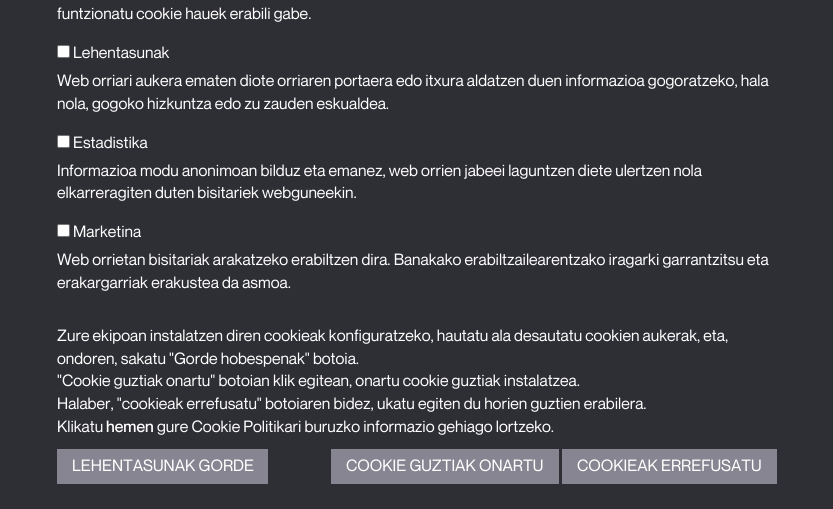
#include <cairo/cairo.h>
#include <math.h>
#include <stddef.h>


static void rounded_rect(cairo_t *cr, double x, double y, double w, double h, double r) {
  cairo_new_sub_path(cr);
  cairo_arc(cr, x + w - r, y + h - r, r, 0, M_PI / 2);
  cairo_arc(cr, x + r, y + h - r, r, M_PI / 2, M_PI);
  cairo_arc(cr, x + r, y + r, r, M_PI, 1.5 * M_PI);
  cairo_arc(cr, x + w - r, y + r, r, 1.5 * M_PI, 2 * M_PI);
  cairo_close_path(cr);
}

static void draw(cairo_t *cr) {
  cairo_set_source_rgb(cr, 46 / 255.0, 46 / 255.0, 53 / 255.0);
  cairo_paint(cr);
  cairo_set_source_rgb(cr, 1, 1, 1);
  rounded_rect(cr, 57.5, 45.5, 12, 12, 1.5);
  cairo_fill_preserve(cr);
  cairo_set_source_rgb(cr, 118 / 255.0, 118 / 255.0, 118 / 255.0);
  cairo_set_line_width(cr, 1);
  cairo_stroke(cr);
  cairo_set_source_rgb(cr, 1, 1, 1);
  rounded_rect(cr, 57.5, 135.5, 12, 12, 1.5);
  cairo_fill_preserve(cr);
  cairo_set_source_rgb(cr, 118 / 255.0, 118 / 255.0, 118 / 255.0);
  cairo_stroke(cr);
  cairo_set_source_rgb(cr, 1, 1, 1);
  rounded_rect(cr, 57.5, 224.5, 12, 12, 1.5);
  cairo_fill_preserve(cr);
  cairo_set_source_rgb(cr, 118 / 255.0, 118 / 255.0, 118 / 255.0);
  cairo_stroke(cr);
  cairo_set_source_rgb(cr, 135 / 255.0, 133 / 255.0, 145 / 255.0);
  cairo_rectangle(cr, 57, 449, 211, 35);
  cairo_fill(cr);
  cairo_rectangle(cr, 331, 449, 228, 35);
  cairo_fill(cr);
  cairo_rectangle(cr, 562, 449, 215, 35);
  cairo_fill(cr);
  cairo_select_font_face(cr, "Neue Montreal", CAIRO_FONT_SLANT_NORMAL, CAIRO_FONT_WEIGHT_NORMAL);
  cairo_set_font_size(cr, 16);
  cairo_set_source_rgb(cr, 1, 1, 1);
  cairo_move_to(cr, 57, 19);
  cairo_show_text(cr, "funtzionatu cookie hauek erabili gabe.");
  cairo_move_to(cr, 73, 58);
  cairo_show_text(cr, "Lehentasunak");
  cairo_move_to(cr, 57, 86);
  cairo_show_text(cr, "Web orriari aukera ematen diote orriaren portaera edo itxura aldatzen duen informazioa gogoratzeko, hala");
  cairo_move_to(cr, 57, 109);
  cairo_show_text(cr, "nola, gogoko hizkuntza edo zu zauden eskualdea.");
  cairo_move_to(cr, 73, 148);
  cairo_show_text(cr, "Estadistika");
  cairo_move_to(cr, 57, 176);
  cairo_show_text(cr, "Informazioa modu anonimoan bilduz eta emanez, web orrien jabeei laguntzen diete ulertzen nola");
  cairo_move_to(cr, 57, 198);
  cairo_show_text(cr, "elkarreragiten duten bisitariek webguneekin.");
  cairo_move_to(cr, 73, 237);
  cairo_show_text(cr, "Marketina");
  cairo_move_to(cr, 57, 265);
  cairo_show_text(cr, "Web orrietan bisitariak arakatzeko erabiltzen dira. Banakako erabiltzailearentzako iragarki garrantzitsu eta");
  cairo_move_to(cr, 57, 288);
  cairo_show_text(cr, "erakargarriak erakustea da asmoa.");
  cairo_move_to(cr, 57, 341);
  cairo_show_text(cr, "Zure ekipoan instalatzen diren cookieak konfiguratzeko, hautatu ala desautatu cookien aukerak, eta,");
  cairo_move_to(cr, 57, 364);
  cairo_show_text(cr, "ondoren, sakatu \"Gorde hobespenak\" botoia.");
  cairo_move_to(cr, 57, 386);
  cairo_show_text(cr, "\"Cookie guztiak onartu\" botoian klik egitean, onartu cookie guztiak instalatzea.");
  cairo_move_to(cr, 57, 409);
  cairo_show_text(cr, "Halaber, \"cookieak errefusatu\" botoiaren bidez, ukatu egiten du horien guztien erabilera.");
  cairo_move_to(cr, 57, 432);
  cairo_show_text(cr, "Klikatu");
  cairo_select_font_face(cr, "Neue Montreal Medium", CAIRO_FONT_SLANT_NORMAL, CAIRO_FONT_WEIGHT_NORMAL);
  cairo_move_to(cr, 106, 432);
  cairo_show_text(cr, "hemen");
  cairo_select_font_face(cr, "Neue Montreal", CAIRO_FONT_SLANT_NORMAL, CAIRO_FONT_WEIGHT_NORMAL);
  cairo_move_to(cr, 157, 432);
  cairo_show_text(cr, "gure Cookie Politikari buruzko informazio gehiago lortzeko.");
  cairo_move_to(cr, 72, 471);
  cairo_show_text(cr, "LEHENTASUNAK GORDE");
  cairo_move_to(cr, 346, 471);
  cairo_show_text(cr, "COOKIE GUZTIAK ONARTU");
  cairo_move_to(cr, 577, 471);
  cairo_show_text(cr, "COOKIEAK ERREFUSATU");
}

int main(void) {
  cairo_surface_t *surface = cairo_image_surface_create(CAIRO_FORMAT_RGB24, 833, 509);
  cairo_t *cr = cairo_create(surface);
  cairo_font_options_t *options = cairo_font_options_create();
  cairo_font_options_set_hint_metrics(options, CAIRO_HINT_METRICS_OFF);
  cairo_font_options_set_hint_style(options, CAIRO_HINT_STYLE_NONE);
  cairo_set_font_options(cr, options);
  cairo_set_miter_limit(cr, 4);
  draw(cr);
  cairo_surface_write_to_png(surface, "out.png");
  cairo_font_options_destroy(options);
  cairo_destroy(cr);
  cairo_surface_destroy(surface);
  return 0;
}
